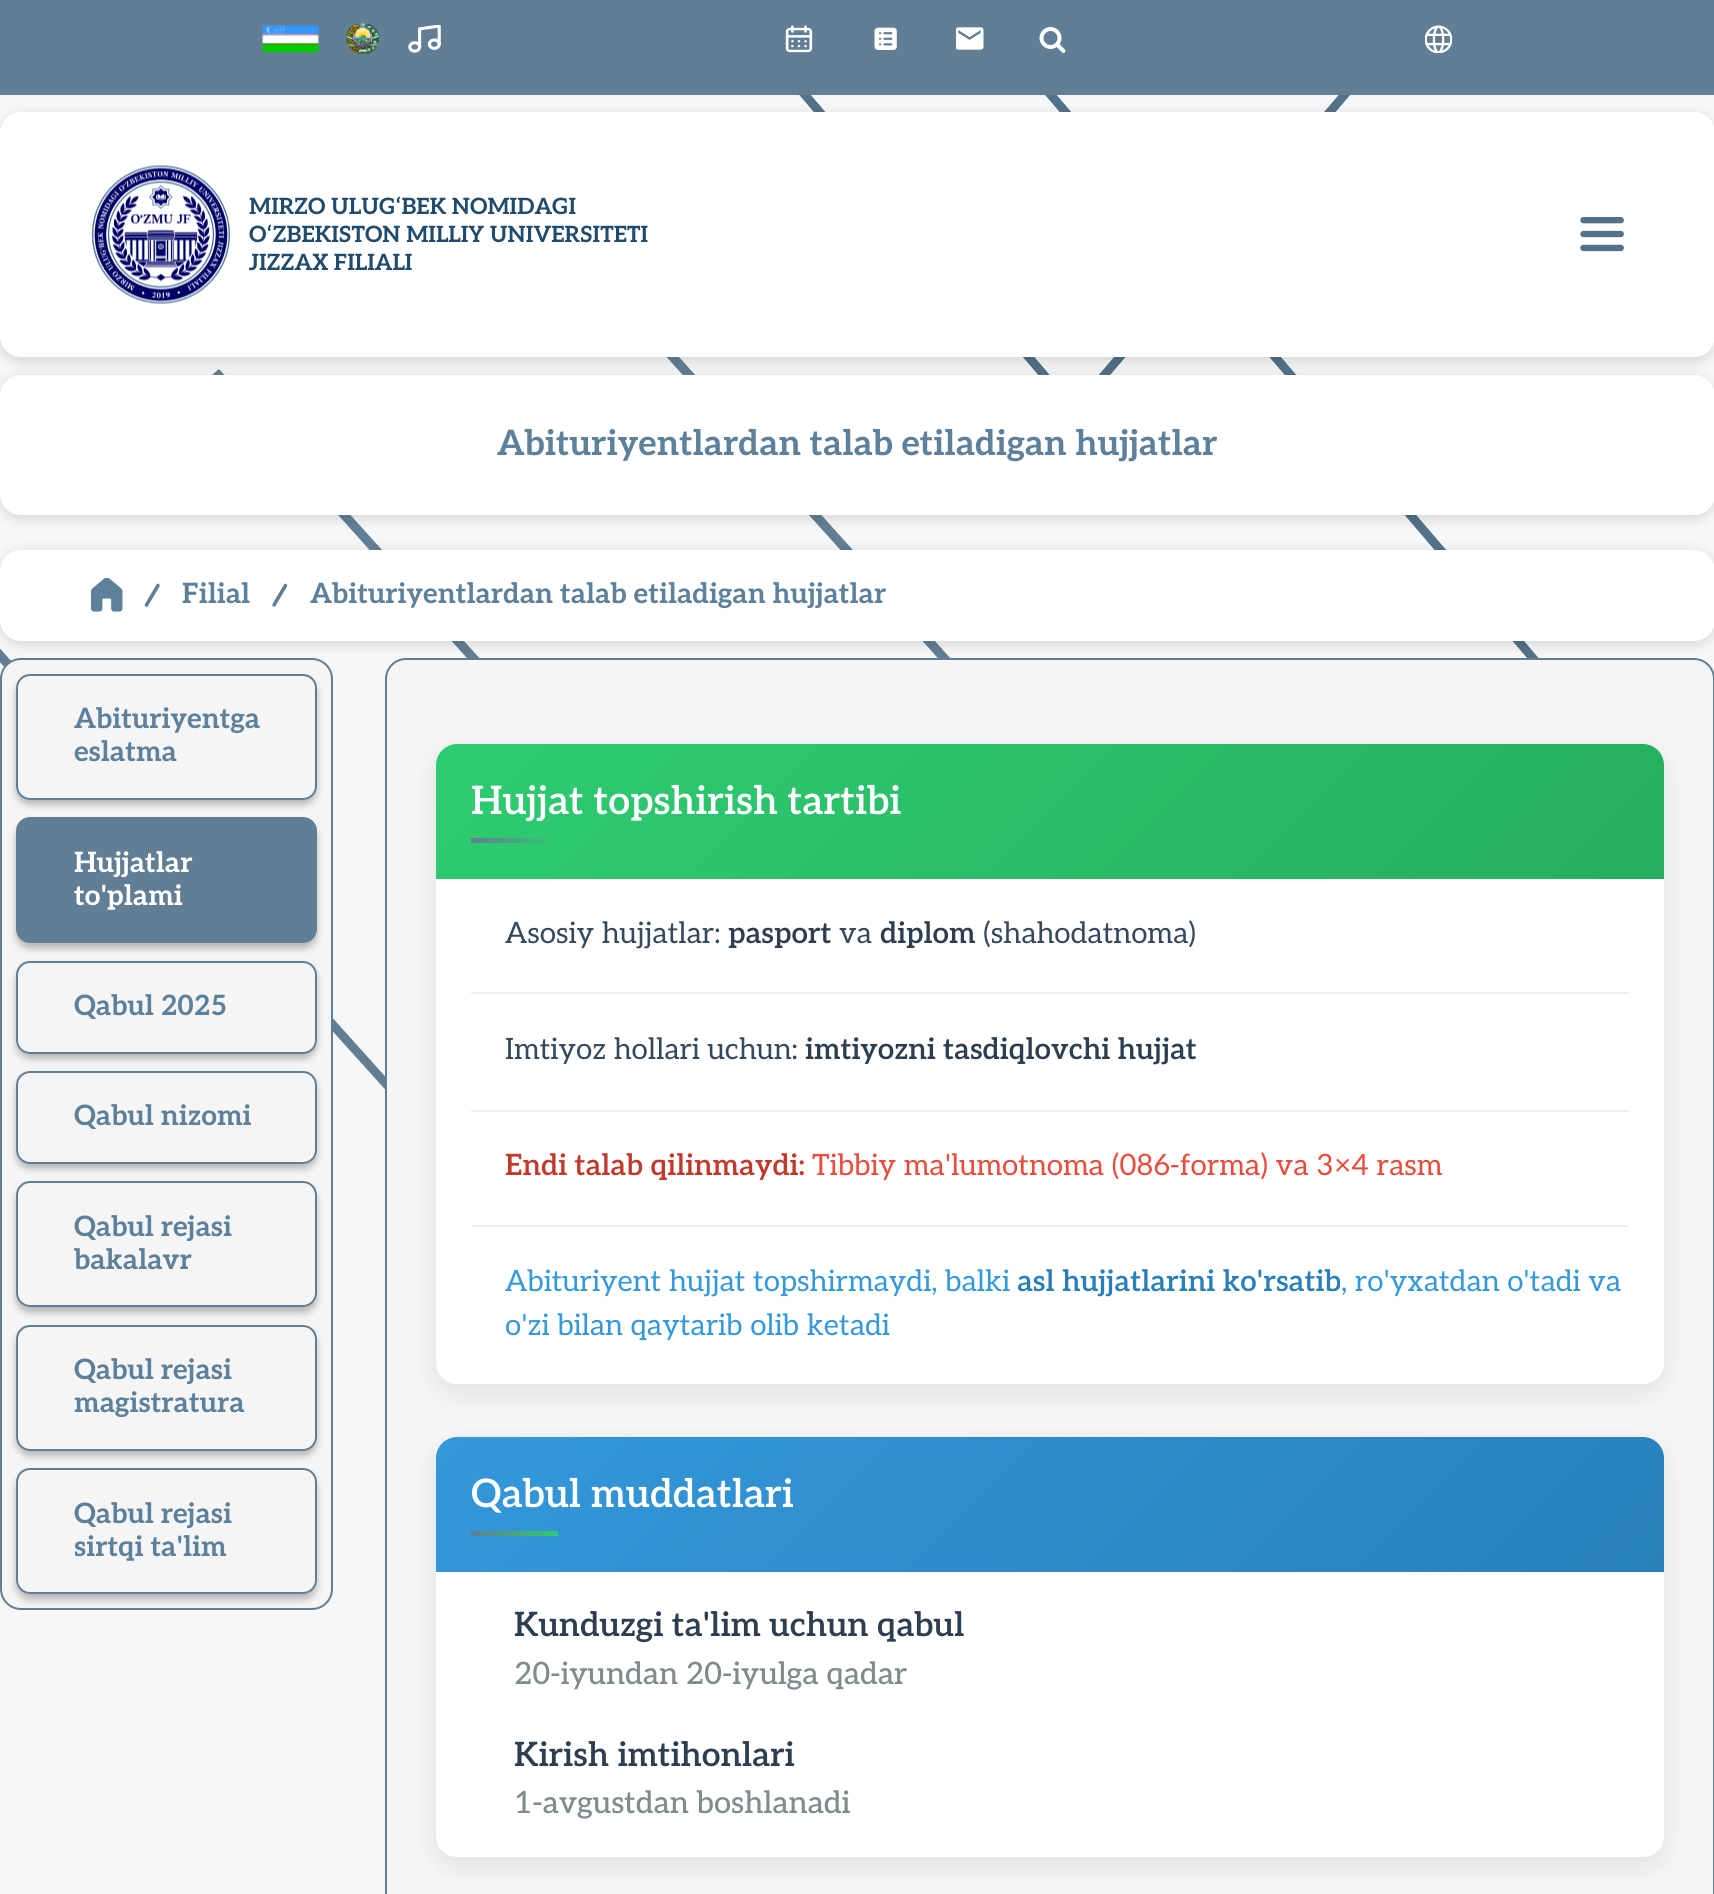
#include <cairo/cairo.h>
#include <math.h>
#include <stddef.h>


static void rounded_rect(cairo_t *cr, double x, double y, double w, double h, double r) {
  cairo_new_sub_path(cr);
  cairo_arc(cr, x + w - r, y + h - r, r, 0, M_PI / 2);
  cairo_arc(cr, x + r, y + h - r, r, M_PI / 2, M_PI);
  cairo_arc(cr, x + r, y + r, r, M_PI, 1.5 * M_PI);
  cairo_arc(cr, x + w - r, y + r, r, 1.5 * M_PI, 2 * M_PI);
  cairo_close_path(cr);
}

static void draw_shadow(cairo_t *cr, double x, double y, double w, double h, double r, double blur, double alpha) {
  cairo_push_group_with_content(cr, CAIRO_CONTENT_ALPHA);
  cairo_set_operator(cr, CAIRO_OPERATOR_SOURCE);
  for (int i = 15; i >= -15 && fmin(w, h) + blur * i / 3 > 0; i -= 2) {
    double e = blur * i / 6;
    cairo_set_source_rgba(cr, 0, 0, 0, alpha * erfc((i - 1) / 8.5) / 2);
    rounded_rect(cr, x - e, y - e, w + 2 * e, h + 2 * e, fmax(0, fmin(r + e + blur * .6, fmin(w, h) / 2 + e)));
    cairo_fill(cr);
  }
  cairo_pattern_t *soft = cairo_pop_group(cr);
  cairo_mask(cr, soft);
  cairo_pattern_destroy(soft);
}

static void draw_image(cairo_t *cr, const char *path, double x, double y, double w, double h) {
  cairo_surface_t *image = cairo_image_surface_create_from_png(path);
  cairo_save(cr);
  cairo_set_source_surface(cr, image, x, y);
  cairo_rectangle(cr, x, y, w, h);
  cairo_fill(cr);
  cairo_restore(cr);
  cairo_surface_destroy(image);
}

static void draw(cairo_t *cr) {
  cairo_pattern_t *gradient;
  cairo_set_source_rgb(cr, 245 / 255.0, 247 / 255.0, 248 / 255.0);
  cairo_paint(cr);
  draw_image(cr, "images/1.png", 799, 95, 740, 563);
  cairo_set_source_rgb(cr, 98 / 255.0, 126 / 255.0, 148 / 255.0);
  cairo_rectangle(cr, 0, 0, 1714, 95);
  cairo_fill(cr);
  draw_image(cr, "images/2.png", 262, 24, 57, 29);
  draw_image(cr, "images/3.png", 346, 22, 34, 33);
  draw_image(cr, "images/4.png", 408, 25, 33, 28);
  draw_image(cr, "images/5.png", 785, 25, 28, 28);
  draw_image(cr, "images/6.png", 874, 27, 23, 23);
  draw_image(cr, "images/7.png", 956, 27, 28, 23);
  draw_image(cr, "images/8.png", 1039, 27, 27, 26);
  draw_image(cr, "images/9.png", 1425, 25, 27, 28);
  cairo_new_path(cr);
  cairo_move_to(cr, 479, 135);
  cairo_line_to(cr, 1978, 1799);
  cairo_line_to(cr, 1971, 1805);
  cairo_line_to(cr, 472, 141);
  cairo_close_path(cr);
  cairo_fill(cr);
  cairo_new_path(cr);
  cairo_move_to(cr, 219, 369);
  cairo_line_to(cr, 1343, 1617);
  cairo_line_to(cr, 1336, 1623);
  cairo_line_to(cr, 212, 375);
  cairo_close_path(cr);
  cairo_fill(cr);
  cairo_new_path(cr);
  cairo_move_to(cr, -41, 603);
  cairo_line_to(cr, 708, 1435);
  cairo_line_to(cr, 702, 1441);
  cairo_line_to(cr, -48, 609);
  cairo_close_path(cr);
  cairo_fill(cr);
  cairo_set_source_rgb(cr, 0, 0, 0);
  draw_shadow(cr, 0, 116, 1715, 245, 21, 7, 0.15);
  cairo_set_source_rgb(cr, 1, 1, 1);
  rounded_rect(cr, 0, 112, 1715, 245, 21);
  cairo_fill(cr);
  draw_image(cr, "images/10.png", 91, 165, 140, 139);
  draw_image(cr, "images/11.png", 1580, 217, 44, 35);
  cairo_set_source_rgb(cr, 0, 0, 0);
  draw_shadow(cr, 0, 378, 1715, 140, 21, 7, 0.15);
  cairo_set_source_rgb(cr, 1, 1, 1);
  rounded_rect(cr, 0, 375, 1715, 140, 21);
  cairo_fill(cr);
  cairo_set_source_rgb(cr, 245 / 255.0, 245 / 255.0, 245 / 255.0);
  rounded_rect(cr, 1, 659, 331, 950, 20);
  cairo_fill_preserve(cr);
  cairo_set_source_rgb(cr, 98 / 255.0, 126 / 255.0, 148 / 255.0);
  cairo_stroke(cr);
  cairo_set_source_rgb(cr, 0, 0, 0);
  draw_shadow(cr, 0, 553, 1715, 91, 21, 7, 0.15);
  cairo_set_source_rgb(cr, 1, 1, 1);
  rounded_rect(cr, 0, 550, 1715, 91, 21);
  cairo_fill(cr);
  draw_image(cr, "images/12.png", 91, 578, 32, 34);
  cairo_set_source_rgb(cr, 98 / 255.0, 126 / 255.0, 148 / 255.0);
  cairo_new_path(cr);
  cairo_move_to(cr, 159, 584);
  cairo_curve_to(cr, 159.5, 584.5, 160, 585.5, 159.5, 586.5);
  cairo_line_to(cr, 148, 606);
  cairo_curve_to(cr, 147.5, 607, 146.5, 607, 145.5, 606.5);
  cairo_curve_to(cr, 145, 606, 144.5, 605, 145, 604);
  cairo_line_to(cr, 156.5, 584.5);
  cairo_curve_to(cr, 157, 583.5, 158, 583.5, 159, 584);
  cairo_close_path(cr);
  cairo_fill(cr);
  cairo_new_path(cr);
  cairo_move_to(cr, 286.5, 584);
  cairo_curve_to(cr, 287, 584.5, 287.5, 585.5, 287, 586.5);
  cairo_line_to(cr, 275.5, 606);
  cairo_curve_to(cr, 275, 607, 274, 607, 273.5, 606.5);
  cairo_curve_to(cr, 272.5, 606, 272, 605, 272.5, 604);
  cairo_line_to(cr, 284, 584.5);
  cairo_curve_to(cr, 284.5, 583.5, 285.5, 583.5, 286.5, 584);
  cairo_close_path(cr);
  cairo_fill(cr);
  cairo_save(cr);
  cairo_set_fill_rule(cr, CAIRO_FILL_RULE_EVEN_ODD);
  cairo_new_path(cr);
  cairo_move_to(cr, 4, 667);
  cairo_line_to(cr, 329, 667);
  cairo_line_to(cr, 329, 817);
  cairo_line_to(cr, 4, 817);
  cairo_close_path(cr);
  cairo_move_to(cr, 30, 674);
  cairo_line_to(cr, 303, 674);
  cairo_curve_to(cr, 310.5, 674, 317, 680.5, 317, 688);
  cairo_line_to(cr, 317, 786);
  cairo_curve_to(cr, 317, 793.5, 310.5, 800, 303, 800);
  cairo_line_to(cr, 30, 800);
  cairo_curve_to(cr, 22.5, 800, 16, 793.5, 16, 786);
  cairo_line_to(cr, 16, 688);
  cairo_curve_to(cr, 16, 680.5, 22.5, 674, 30, 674);
  cairo_close_path(cr);
  cairo_clip(cr);
  cairo_set_source_rgb(cr, 0, 0, 0);
  draw_shadow(cr, 16, 679, 301, 126, 14, 3.5, 0.25);
  cairo_restore(cr);
  rounded_rect(cr, 17, 675, 299, 124, 13);
  cairo_stroke(cr);
  cairo_set_source_rgb(cr, 0, 0, 0);
  draw_shadow(cr, 16, 823, 301, 126, 14, 3.5, 0.25);
  cairo_set_source_rgb(cr, 98 / 255.0, 126 / 255.0, 148 / 255.0);
  rounded_rect(cr, 17, 818, 299, 124, 13);
  cairo_fill_preserve(cr);
  cairo_stroke(cr);
  cairo_save(cr);
  cairo_set_fill_rule(cr, CAIRO_FILL_RULE_EVEN_ODD);
  cairo_new_path(cr);
  cairo_move_to(cr, 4, 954);
  cairo_line_to(cr, 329, 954);
  cairo_line_to(cr, 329, 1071);
  cairo_line_to(cr, 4, 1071);
  cairo_close_path(cr);
  cairo_move_to(cr, 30, 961);
  cairo_line_to(cr, 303, 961);
  cairo_curve_to(cr, 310.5, 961, 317, 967.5, 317, 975);
  cairo_line_to(cr, 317, 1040);
  cairo_curve_to(cr, 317, 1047.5, 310.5, 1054, 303, 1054);
  cairo_line_to(cr, 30, 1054);
  cairo_curve_to(cr, 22.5, 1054, 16, 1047.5, 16, 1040);
  cairo_line_to(cr, 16, 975);
  cairo_curve_to(cr, 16, 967.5, 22.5, 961, 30, 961);
  cairo_close_path(cr);
  cairo_clip(cr);
  cairo_set_source_rgb(cr, 0, 0, 0);
  draw_shadow(cr, 16, 966, 301, 93, 14, 3.5, 0.25);
  cairo_restore(cr);
  rounded_rect(cr, 17, 962, 299, 91, 13);
  cairo_stroke(cr);
  cairo_save(cr);
  cairo_set_fill_rule(cr, CAIRO_FILL_RULE_EVEN_ODD);
  cairo_new_path(cr);
  cairo_move_to(cr, 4, 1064);
  cairo_line_to(cr, 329, 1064);
  cairo_line_to(cr, 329, 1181);
  cairo_line_to(cr, 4, 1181);
  cairo_close_path(cr);
  cairo_move_to(cr, 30, 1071);
  cairo_line_to(cr, 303, 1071);
  cairo_curve_to(cr, 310.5, 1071, 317, 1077.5, 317, 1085);
  cairo_line_to(cr, 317, 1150);
  cairo_curve_to(cr, 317, 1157.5, 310.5, 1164, 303, 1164);
  cairo_line_to(cr, 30, 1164);
  cairo_curve_to(cr, 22.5, 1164, 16, 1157.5, 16, 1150);
  cairo_line_to(cr, 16, 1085);
  cairo_curve_to(cr, 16, 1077.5, 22.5, 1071, 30, 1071);
  cairo_close_path(cr);
  cairo_clip(cr);
  cairo_set_source_rgb(cr, 0, 0, 0);
  draw_shadow(cr, 16, 1076, 301, 93, 14, 3.5, 0.25);
  cairo_restore(cr);
  rounded_rect(cr, 17, 1072, 299, 91, 13);
  cairo_stroke(cr);
  cairo_save(cr);
  cairo_set_fill_rule(cr, CAIRO_FILL_RULE_EVEN_ODD);
  cairo_new_path(cr);
  cairo_move_to(cr, 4, 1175);
  cairo_line_to(cr, 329, 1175);
  cairo_line_to(cr, 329, 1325);
  cairo_line_to(cr, 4, 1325);
  cairo_close_path(cr);
  cairo_move_to(cr, 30, 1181);
  cairo_line_to(cr, 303, 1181);
  cairo_curve_to(cr, 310.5, 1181, 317, 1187.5, 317, 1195);
  cairo_line_to(cr, 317, 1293);
  cairo_curve_to(cr, 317, 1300.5, 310.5, 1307, 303, 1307);
  cairo_line_to(cr, 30, 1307);
  cairo_curve_to(cr, 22.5, 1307, 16, 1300.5, 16, 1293);
  cairo_line_to(cr, 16, 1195);
  cairo_curve_to(cr, 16, 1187.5, 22.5, 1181, 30, 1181);
  cairo_close_path(cr);
  cairo_clip(cr);
  cairo_set_source_rgb(cr, 0, 0, 0);
  draw_shadow(cr, 16, 1187, 301, 126, 14, 3.5, 0.25);
  cairo_restore(cr);
  rounded_rect(cr, 17, 1182, 299, 124, 13);
  cairo_stroke(cr);
  cairo_save(cr);
  cairo_set_fill_rule(cr, CAIRO_FILL_RULE_EVEN_ODD);
  cairo_new_path(cr);
  cairo_move_to(cr, 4, 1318);
  cairo_line_to(cr, 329, 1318);
  cairo_line_to(cr, 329, 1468);
  cairo_line_to(cr, 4, 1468);
  cairo_close_path(cr);
  cairo_move_to(cr, 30, 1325);
  cairo_line_to(cr, 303, 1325);
  cairo_curve_to(cr, 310.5, 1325, 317, 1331.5, 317, 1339);
  cairo_line_to(cr, 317, 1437);
  cairo_curve_to(cr, 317, 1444.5, 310.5, 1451, 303, 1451);
  cairo_line_to(cr, 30, 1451);
  cairo_curve_to(cr, 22.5, 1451, 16, 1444.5, 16, 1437);
  cairo_line_to(cr, 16, 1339);
  cairo_curve_to(cr, 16, 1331.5, 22.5, 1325, 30, 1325);
  cairo_close_path(cr);
  cairo_clip(cr);
  cairo_set_source_rgb(cr, 0, 0, 0);
  draw_shadow(cr, 16, 1330, 301, 126, 14, 3.5, 0.25);
  cairo_restore(cr);
  rounded_rect(cr, 17, 1326, 299, 124, 13);
  cairo_stroke(cr);
  cairo_save(cr);
  cairo_set_fill_rule(cr, CAIRO_FILL_RULE_EVEN_ODD);
  cairo_new_path(cr);
  cairo_move_to(cr, 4, 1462);
  cairo_line_to(cr, 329, 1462);
  cairo_line_to(cr, 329, 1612);
  cairo_line_to(cr, 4, 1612);
  cairo_close_path(cr);
  cairo_move_to(cr, 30, 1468);
  cairo_line_to(cr, 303, 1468);
  cairo_curve_to(cr, 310.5, 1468, 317, 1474.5, 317, 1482);
  cairo_line_to(cr, 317, 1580);
  cairo_curve_to(cr, 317, 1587.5, 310.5, 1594, 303, 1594);
  cairo_line_to(cr, 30, 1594);
  cairo_curve_to(cr, 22.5, 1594, 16, 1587.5, 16, 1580);
  cairo_line_to(cr, 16, 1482);
  cairo_curve_to(cr, 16, 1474.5, 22.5, 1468, 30, 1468);
  cairo_close_path(cr);
  cairo_clip(cr);
  cairo_set_source_rgb(cr, 0, 0, 0);
  draw_shadow(cr, 16, 1474, 301, 126, 14, 3.5, 0.25);
  cairo_restore(cr);
  rounded_rect(cr, 17, 1469, 299, 124, 13);
  cairo_stroke(cr);
  cairo_set_source_rgb(cr, 245 / 255.0, 245 / 255.0, 245 / 255.0);
  rounded_rect(cr, 386, 659, 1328, 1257, 20);
  cairo_fill_preserve(cr);
  cairo_set_source_rgb(cr, 98 / 255.0, 126 / 255.0, 148 / 255.0);
  cairo_stroke(cr);
  cairo_set_source_rgb(cr, 0, 0, 0);
  draw_shadow(cr, 436, 753, 1228, 640, 21, 13, 0.08);
  cairo_set_source_rgb(cr, 1, 1, 1);
  rounded_rect(cr, 436, 744, 1228, 640, 21);
  cairo_fill(cr);
  gradient = cairo_pattern_create_linear(709, 470, 1391, 1152);
  cairo_pattern_add_color_stop_rgba(gradient, 0, 46 / 255.0, 204 / 255.0, 113 / 255.0, 1);
  cairo_pattern_add_color_stop_rgba(gradient, 1, 39 / 255.0, 174 / 255.0, 96 / 255.0, 1);
  cairo_set_source(cr, gradient);
  cairo_pattern_destroy(gradient);
  cairo_new_path(cr);
  cairo_move_to(cr, 457, 744);
  cairo_line_to(cr, 1643, 744);
  cairo_curve_to(cr, 1654.5, 744, 1664, 753.5, 1664, 765);
  cairo_line_to(cr, 1664, 879);
  cairo_line_to(cr, 436, 879);
  cairo_line_to(cr, 436, 765);
  cairo_curve_to(cr, 436, 753.5, 445.5, 744, 457, 744);
  cairo_close_path(cr);
  cairo_fill(cr);
  gradient = cairo_pattern_create_linear(471, 841, 558, 841);
  cairo_pattern_add_color_stop_rgba(gradient, 0, 98 / 255.0, 126 / 255.0, 148 / 255.0, 1);
  cairo_pattern_add_color_stop_rgba(gradient, 1, 46 / 255.0, 204 / 255.0, 113 / 255.0, 1);
  cairo_set_source(cr, gradient);
  cairo_pattern_destroy(gradient);
  cairo_rectangle(cr, 471, 838, 87, 5);
  cairo_fill(cr);
  cairo_set_source_rgb(cr, 236 / 255.0, 240 / 255.0, 241 / 255.0);
  cairo_rectangle(cr, 471, 992, 1158, 2);
  cairo_fill(cr);
  cairo_rectangle(cr, 471, 1110, 1158, 2);
  cairo_fill(cr);
  cairo_rectangle(cr, 471, 1225, 1158, 2);
  cairo_fill(cr);
  cairo_set_source_rgb(cr, 0, 0, 0);
  draw_shadow(cr, 436, 1446, 1228, 420, 21, 13, 0.08);
  cairo_set_source_rgb(cr, 1, 1, 1);
  rounded_rect(cr, 436, 1437, 1228, 420, 21);
  cairo_fill(cr);
  gradient = cairo_pattern_create_linear(709, 1163, 1391, 1845);
  cairo_pattern_add_color_stop_rgba(gradient, 0, 52 / 255.0, 152 / 255.0, 219 / 255.0, 1);
  cairo_pattern_add_color_stop_rgba(gradient, 1, 41 / 255.0, 128 / 255.0, 185 / 255.0, 1);
  cairo_set_source(cr, gradient);
  cairo_pattern_destroy(gradient);
  cairo_new_path(cr);
  cairo_move_to(cr, 457, 1437);
  cairo_line_to(cr, 1643, 1437);
  cairo_curve_to(cr, 1654.5, 1437, 1664, 1446.5, 1664, 1458);
  cairo_line_to(cr, 1664, 1572);
  cairo_line_to(cr, 436, 1572);
  cairo_line_to(cr, 436, 1458);
  cairo_curve_to(cr, 436, 1446.5, 445.5, 1437, 457, 1437);
  cairo_close_path(cr);
  cairo_fill(cr);
  gradient = cairo_pattern_create_linear(471, 1534, 558, 1534);
  cairo_pattern_add_color_stop_rgba(gradient, 0, 98 / 255.0, 126 / 255.0, 148 / 255.0, 1);
  cairo_pattern_add_color_stop_rgba(gradient, 1, 46 / 255.0, 204 / 255.0, 113 / 255.0, 1);
  cairo_set_source(cr, gradient);
  cairo_pattern_destroy(gradient);
  cairo_rectangle(cr, 471, 1531, 87, 5);
  cairo_fill(cr);
  cairo_select_font_face(cr, "Aleo", CAIRO_FONT_SLANT_NORMAL, CAIRO_FONT_WEIGHT_BOLD);
  cairo_set_font_size(cr, 22.4);
  cairo_set_source_rgb(cr, 32 / 255.0, 75 / 255.0, 108 / 255.0);
  cairo_move_to(cr, 249, 214);
  cairo_show_text(cr, "MIRZO ULUG‘BEK NOMIDAGI");
  cairo_move_to(cr, 249, 242);
  cairo_show_text(cr, "O‘ZBEKISTON MILLIY UNIVERSITETI");
  cairo_move_to(cr, 249, 270);
  cairo_show_text(cr, "JIZZAX FILIALI");
  cairo_set_font_size(cr, 35);
  cairo_set_source_rgb(cr, 93 / 255.0, 128 / 255.0, 155 / 255.0);
  cairo_move_to(cr, 497, 455);
  cairo_show_text(cr, "Abituriyentlardan talab etiladigan hujjatlar");
  cairo_set_font_size(cr, 28);
  cairo_move_to(cr, 182, 603);
  cairo_show_text(cr, "Filial");
  cairo_move_to(cr, 310, 603);
  cairo_show_text(cr, "Abituriyentlardan talab etiladigan hujjatlar");
  cairo_move_to(cr, 74, 728);
  cairo_show_text(cr, "Abituriyentga");
  cairo_move_to(cr, 74, 761);
  cairo_show_text(cr, "eslatma");
  cairo_set_source_rgb(cr, 1, 1, 1);
  cairo_move_to(cr, 74, 872);
  cairo_show_text(cr, "Hujjatlar");
  cairo_move_to(cr, 74, 905);
  cairo_show_text(cr, "to'plami");
  cairo_set_source_rgb(cr, 93 / 255.0, 128 / 255.0, 155 / 255.0);
  cairo_move_to(cr, 74, 1015);
  cairo_show_text(cr, "Qabul 2025");
  cairo_move_to(cr, 74, 1125);
  cairo_show_text(cr, "Qabul nizomi");
  cairo_move_to(cr, 74, 1236);
  cairo_show_text(cr, "Qabul rejasi");
  cairo_move_to(cr, 74, 1269);
  cairo_show_text(cr, "bakalavr");
  cairo_move_to(cr, 74, 1379);
  cairo_show_text(cr, "Qabul rejasi");
  cairo_move_to(cr, 74, 1412);
  cairo_show_text(cr, "magistratura");
  cairo_move_to(cr, 74, 1523);
  cairo_show_text(cr, "Qabul rejasi");
  cairo_move_to(cr, 74, 1556);
  cairo_show_text(cr, "sirtqi ta'lim");
  cairo_select_font_face(cr, "Aleo SemiBold", CAIRO_FONT_SLANT_NORMAL, CAIRO_FONT_WEIGHT_NORMAL);
  cairo_set_font_size(cr, 39.25);
  cairo_set_source_rgb(cr, 1, 1, 1);
  cairo_move_to(cr, 471, 814);
  cairo_show_text(cr, "Hujjat topshirish tartibi");
  cairo_select_font_face(cr, "Aleo", CAIRO_FONT_SLANT_NORMAL, CAIRO_FONT_WEIGHT_NORMAL);
  cairo_set_font_size(cr, 29.4);
  cairo_set_source_rgb(cr, 52 / 255.0, 73 / 255.0, 94 / 255.0);
  cairo_move_to(cr, 505, 943);
  cairo_show_text(cr, "Asosiy hujjatlar:");
  cairo_select_font_face(cr, "Aleo SemiBold", CAIRO_FONT_SLANT_NORMAL, CAIRO_FONT_WEIGHT_NORMAL);
  cairo_set_source_rgb(cr, 44 / 255.0, 62 / 255.0, 80 / 255.0);
  cairo_move_to(cr, 728, 943);
  cairo_show_text(cr, "pasport");
  cairo_select_font_face(cr, "Aleo", CAIRO_FONT_SLANT_NORMAL, CAIRO_FONT_WEIGHT_NORMAL);
  cairo_set_source_rgb(cr, 52 / 255.0, 73 / 255.0, 94 / 255.0);
  cairo_move_to(cr, 839, 943);
  cairo_show_text(cr, "va");
  cairo_select_font_face(cr, "Aleo SemiBold", CAIRO_FONT_SLANT_NORMAL, CAIRO_FONT_WEIGHT_NORMAL);
  cairo_set_source_rgb(cr, 44 / 255.0, 62 / 255.0, 80 / 255.0);
  cairo_move_to(cr, 880, 943);
  cairo_show_text(cr, "diplom");
  cairo_select_font_face(cr, "Aleo", CAIRO_FONT_SLANT_NORMAL, CAIRO_FONT_WEIGHT_NORMAL);
  cairo_set_source_rgb(cr, 52 / 255.0, 73 / 255.0, 94 / 255.0);
  cairo_move_to(cr, 983, 943);
  cairo_show_text(cr, "(shahodatnoma)");
  cairo_move_to(cr, 505, 1059);
  cairo_show_text(cr, "Imtiyoz hollari uchun:");
  cairo_select_font_face(cr, "Aleo SemiBold", CAIRO_FONT_SLANT_NORMAL, CAIRO_FONT_WEIGHT_NORMAL);
  cairo_set_source_rgb(cr, 44 / 255.0, 62 / 255.0, 80 / 255.0);
  cairo_move_to(cr, 805, 1059);
  cairo_show_text(cr, "imtiyozni tasdiqlovchi hujjat");
  cairo_set_source_rgb(cr, 192 / 255.0, 57 / 255.0, 43 / 255.0);
  cairo_move_to(cr, 505, 1175);
  cairo_show_text(cr, "Endi talab qilinmaydi:");
  cairo_select_font_face(cr, "Aleo", CAIRO_FONT_SLANT_NORMAL, CAIRO_FONT_WEIGHT_NORMAL);
  cairo_set_source_rgb(cr, 231 / 255.0, 76 / 255.0, 60 / 255.0);
  cairo_move_to(cr, 812, 1175);
  cairo_show_text(cr, "Tibbiy ma'lumotnoma (086-forma) va 3×4 rasm");
  cairo_set_source_rgb(cr, 52 / 255.0, 152 / 255.0, 219 / 255.0);
  cairo_move_to(cr, 505, 1291);
  cairo_show_text(cr, "Abituriyent hujjat topshirmaydi, balki");
  cairo_select_font_face(cr, "Aleo SemiBold", CAIRO_FONT_SLANT_NORMAL, CAIRO_FONT_WEIGHT_NORMAL);
  cairo_set_source_rgb(cr, 41 / 255.0, 128 / 255.0, 185 / 255.0);
  cairo_move_to(cr, 1017, 1291);
  cairo_show_text(cr, "asl hujjatlarini ko'rsatib");
  cairo_select_font_face(cr, "Aleo", CAIRO_FONT_SLANT_NORMAL, CAIRO_FONT_WEIGHT_NORMAL);
  cairo_set_source_rgb(cr, 52 / 255.0, 152 / 255.0, 219 / 255.0);
  cairo_move_to(cr, 1341, 1291);
  cairo_show_text(cr, ", ro'yxatdan o'tadi va");
  cairo_move_to(cr, 505, 1335);
  cairo_show_text(cr, "o'zi bilan qaytarib olib ketadi");
  cairo_select_font_face(cr, "Aleo SemiBold", CAIRO_FONT_SLANT_NORMAL, CAIRO_FONT_WEIGHT_NORMAL);
  cairo_set_font_size(cr, 39.25);
  cairo_set_source_rgb(cr, 1, 1, 1);
  cairo_move_to(cr, 471, 1507);
  cairo_show_text(cr, "Qabul muddatlari");
  cairo_set_font_size(cr, 33.6);
  cairo_set_source_rgb(cr, 44 / 255.0, 62 / 255.0, 80 / 255.0);
  cairo_move_to(cr, 514, 1636);
  cairo_show_text(cr, "Kunduzgi ta'lim uchun qabul");
  cairo_select_font_face(cr, "Aleo Medium", CAIRO_FONT_SLANT_NORMAL, CAIRO_FONT_WEIGHT_NORMAL);
  cairo_set_font_size(cr, 30.75);
  cairo_set_source_rgb(cr, 127 / 255.0, 140 / 255.0, 141 / 255.0);
  cairo_move_to(cr, 514, 1684);
  cairo_show_text(cr, "20-iyundan 20-iyulga qadar");
  cairo_select_font_face(cr, "Aleo SemiBold", CAIRO_FONT_SLANT_NORMAL, CAIRO_FONT_WEIGHT_NORMAL);
  cairo_set_font_size(cr, 33.6);
  cairo_set_source_rgb(cr, 44 / 255.0, 62 / 255.0, 80 / 255.0);
  cairo_move_to(cr, 514, 1766);
  cairo_show_text(cr, "Kirish imtihonlari");
  cairo_select_font_face(cr, "Aleo Medium", CAIRO_FONT_SLANT_NORMAL, CAIRO_FONT_WEIGHT_NORMAL);
  cairo_set_font_size(cr, 30.75);
  cairo_set_source_rgb(cr, 127 / 255.0, 140 / 255.0, 141 / 255.0);
  cairo_move_to(cr, 514, 1813);
  cairo_show_text(cr, "1-avgustdan boshlanadi");
}

int main(void) {
  cairo_surface_t *surface = cairo_image_surface_create(CAIRO_FORMAT_RGB24, 1714, 1894);
  cairo_t *cr = cairo_create(surface);
  cairo_font_options_t *options = cairo_font_options_create();
  cairo_font_options_set_hint_metrics(options, CAIRO_HINT_METRICS_OFF);
  cairo_font_options_set_hint_style(options, CAIRO_HINT_STYLE_NONE);
  cairo_set_font_options(cr, options);
  cairo_set_miter_limit(cr, 4);
  draw(cr);
  cairo_surface_write_to_png(surface, "out.png");
  cairo_font_options_destroy(options);
  cairo_destroy(cr);
  cairo_surface_destroy(surface);
  return 0;
}
